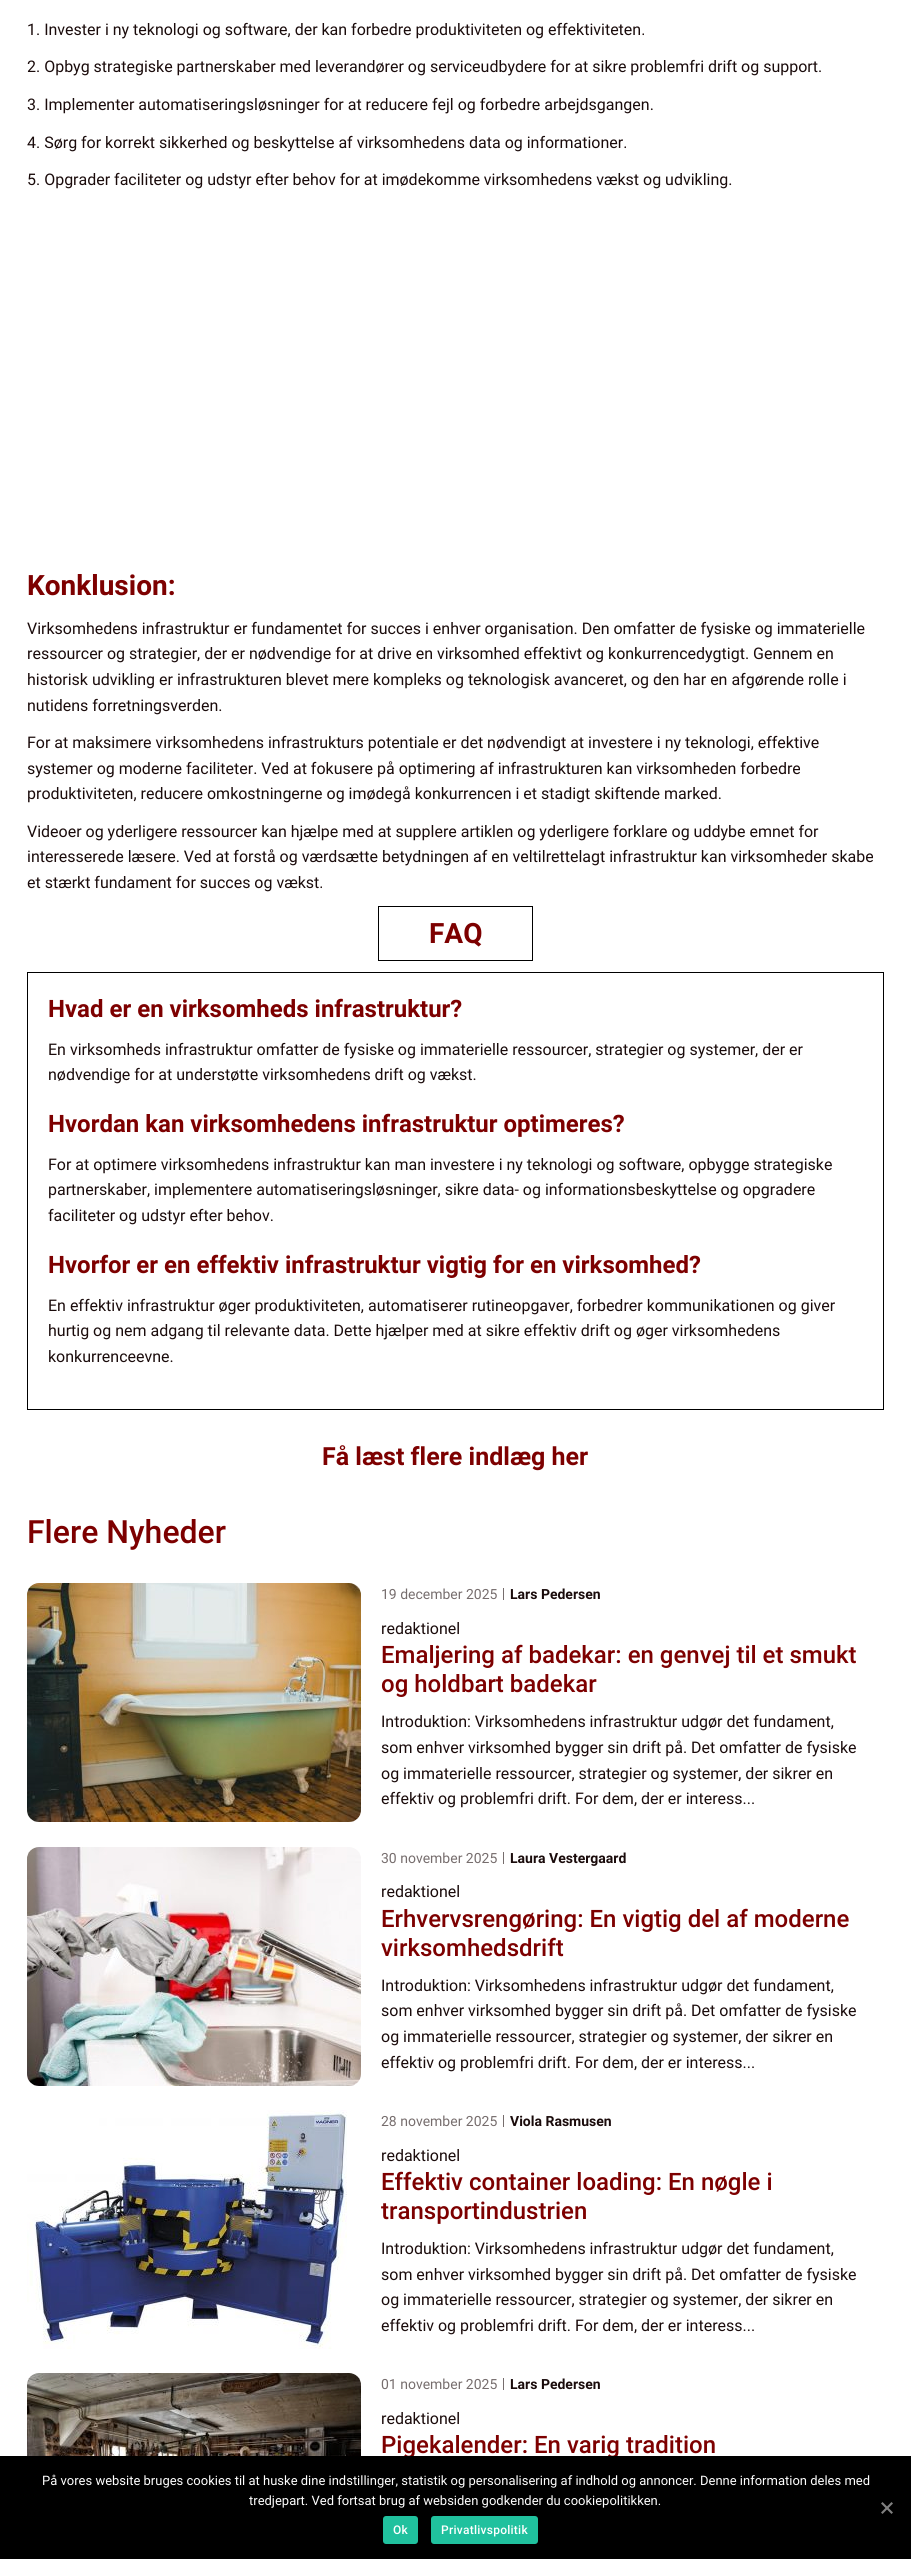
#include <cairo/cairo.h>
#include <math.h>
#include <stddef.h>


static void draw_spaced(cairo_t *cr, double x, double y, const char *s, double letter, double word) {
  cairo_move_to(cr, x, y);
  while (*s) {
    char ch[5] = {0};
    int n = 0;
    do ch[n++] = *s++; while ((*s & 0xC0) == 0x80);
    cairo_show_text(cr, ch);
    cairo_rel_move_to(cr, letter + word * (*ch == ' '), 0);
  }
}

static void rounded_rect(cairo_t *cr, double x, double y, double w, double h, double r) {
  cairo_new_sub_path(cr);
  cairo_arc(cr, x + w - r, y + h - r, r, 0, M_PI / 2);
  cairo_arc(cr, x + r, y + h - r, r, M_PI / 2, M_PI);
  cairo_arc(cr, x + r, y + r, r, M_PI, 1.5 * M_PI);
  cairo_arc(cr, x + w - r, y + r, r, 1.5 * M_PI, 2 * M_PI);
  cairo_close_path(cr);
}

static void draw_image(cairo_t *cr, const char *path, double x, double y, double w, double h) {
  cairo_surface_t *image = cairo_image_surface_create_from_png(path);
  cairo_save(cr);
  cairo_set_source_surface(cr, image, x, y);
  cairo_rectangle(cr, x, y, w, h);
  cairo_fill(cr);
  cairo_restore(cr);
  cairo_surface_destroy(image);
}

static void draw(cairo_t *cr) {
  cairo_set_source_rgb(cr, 1, 1, 1);
  cairo_paint(cr);
  cairo_rectangle(cr, 378.5, 906.5, 154, 54);
  cairo_set_source_rgb(cr, 0, 0, 0);
  cairo_set_line_width(cr, 1);
  cairo_stroke(cr);
  cairo_rectangle(cr, 27.5, 972.5, 856, 437);
  cairo_stroke(cr);
  draw_image(cr, "images/1.png", 27, 1583, 334, 239);
  cairo_set_source_rgb(cr, 118 / 255.0, 109 / 255.0, 109 / 255.0);
  cairo_rectangle(cr, 503, 1588, 1, 12);
  cairo_fill(cr);
  draw_image(cr, "images/2.png", 27, 1847, 334, 239);
  cairo_rectangle(cr, 503, 1852, 1, 12);
  cairo_fill(cr);
  draw_image(cr, "images/3.png", 27, 2110, 320, 239);
  cairo_rectangle(cr, 503, 2115, 1, 12);
  cairo_fill(cr);
  draw_image(cr, "images/4.png", 27, 2373, 334, 83);
  cairo_rectangle(cr, 503, 2378, 1, 12);
  cairo_fill(cr);
  cairo_select_font_face(cr, "Roboto", CAIRO_FONT_SLANT_NORMAL, CAIRO_FONT_WEIGHT_NORMAL);
  cairo_set_font_size(cr, 16);
  cairo_set_source_rgb(cr, 26 / 255.0, 11 / 255.0, 11 / 255.0);
  cairo_move_to(cr, 27, 35);
  cairo_show_text(cr, "1. Invester i ny teknologi og software, der kan forbedre produktiviteten og effektiviteten.");
  cairo_move_to(cr, 27, 72);
  cairo_show_text(cr, "2. Opbyg strategiske partnerskaber med leverandører og serviceudbydere for at sikre problemfri drift og support.");
  cairo_move_to(cr, 27, 110);
  cairo_show_text(cr, "3. Implementer automatiseringsløsninger for at reducere fejl og forbedre arbejdsgangen.");
  cairo_move_to(cr, 27, 148);
  cairo_show_text(cr, "4. Sørg for korrekt sikkerhed og beskyttelse af virksomhedens data og informationer.");
  cairo_move_to(cr, 27, 185);
  cairo_show_text(cr, "5. Opgrader faciliteter og udstyr efter behov for at imødekomme virksomhedens vækst og udvikling.");
  cairo_select_font_face(cr, "Roboto", CAIRO_FONT_SLANT_NORMAL, CAIRO_FONT_WEIGHT_BOLD);
  cairo_set_font_size(cr, 28);
  cairo_set_source_rgb(cr, 125 / 255.0, 0, 0);
  cairo_move_to(cr, 27, 595);
  cairo_show_text(cr, "Konklusion:");
  cairo_select_font_face(cr, "Roboto", CAIRO_FONT_SLANT_NORMAL, CAIRO_FONT_WEIGHT_NORMAL);
  cairo_set_font_size(cr, 16);
  cairo_set_source_rgb(cr, 26 / 255.0, 11 / 255.0, 11 / 255.0);
  cairo_move_to(cr, 27, 634);
  cairo_show_text(cr, "Virksomhedens infrastruktur er fundamentet for succes i enhver organisation. Den omfatter de fysiske og immaterielle");
  cairo_move_to(cr, 27, 659);
  cairo_show_text(cr, "ressourcer og strategier, der er nødvendige for at drive en virksomhed effektivt og konkurrencedygtigt. Gennem en");
  cairo_move_to(cr, 27, 685);
  cairo_show_text(cr, "historisk udvikling er infrastrukturen blevet mere kompleks og teknologisk avanceret, og den har en afgørende rolle i");
  cairo_move_to(cr, 27, 711);
  cairo_show_text(cr, "nutidens forretningsverden.");
  cairo_move_to(cr, 27, 748);
  cairo_show_text(cr, "For at maksimere virksomhedens infrastrukturs potentiale er det nødvendigt at investere i ny teknologi, effektive");
  cairo_move_to(cr, 27, 774);
  cairo_show_text(cr, "systemer og moderne faciliteter. Ved at fokusere på optimering af infrastrukturen kan virksomheden forbedre");
  cairo_move_to(cr, 27, 799);
  cairo_show_text(cr, "produktiviteten, reducere omkostningerne og imødegå konkurrencen i et stadigt skiftende marked.");
  cairo_move_to(cr, 27, 837);
  cairo_show_text(cr, "Videoer og yderligere ressourcer kan hjælpe med at supplere artiklen og yderligere forklare og uddybe emnet for");
  cairo_move_to(cr, 27, 862);
  cairo_show_text(cr, "interesserede læsere. Ved at forstå og værdsætte betydningen af en veltilrettelagt infrastruktur kan virksomheder skabe");
  cairo_move_to(cr, 27, 888);
  cairo_show_text(cr, "et stærkt fundament for succes og vækst.");
  cairo_select_font_face(cr, "Roboto", CAIRO_FONT_SLANT_NORMAL, CAIRO_FONT_WEIGHT_BOLD);
  cairo_set_font_size(cr, 28);
  cairo_set_source_rgb(cr, 125 / 255.0, 0, 0);
  cairo_move_to(cr, 429, 943);
  cairo_show_text(cr, "FAQ");
  cairo_set_font_size(cr, 24);
  cairo_move_to(cr, 48, 1017);
  cairo_show_text(cr, "Hvad er en virksomheds infrastruktur?");
  cairo_select_font_face(cr, "Roboto", CAIRO_FONT_SLANT_NORMAL, CAIRO_FONT_WEIGHT_NORMAL);
  cairo_set_font_size(cr, 16);
  cairo_set_source_rgb(cr, 26 / 255.0, 11 / 255.0, 11 / 255.0);
  cairo_move_to(cr, 48, 1055);
  cairo_show_text(cr, "En virksomheds infrastruktur omfatter de fysiske og immaterielle ressourcer, strategier og systemer, der er");
  cairo_move_to(cr, 48, 1080);
  cairo_show_text(cr, "nødvendige for at understøtte virksomhedens drift og vækst.");
  cairo_select_font_face(cr, "Roboto", CAIRO_FONT_SLANT_NORMAL, CAIRO_FONT_WEIGHT_BOLD);
  cairo_set_font_size(cr, 24);
  cairo_set_source_rgb(cr, 125 / 255.0, 0, 0);
  cairo_move_to(cr, 48, 1132);
  cairo_show_text(cr, "Hvordan kan virksomhedens infrastruktur optimeres?");
  cairo_select_font_face(cr, "Roboto", CAIRO_FONT_SLANT_NORMAL, CAIRO_FONT_WEIGHT_NORMAL);
  cairo_set_font_size(cr, 16);
  cairo_set_source_rgb(cr, 26 / 255.0, 11 / 255.0, 11 / 255.0);
  cairo_move_to(cr, 48, 1170);
  cairo_show_text(cr, "For at optimere virksomhedens infrastruktur kan man investere i ny teknologi og software, opbygge strategiske");
  cairo_move_to(cr, 48, 1195);
  cairo_show_text(cr, "partnerskaber, implementere automatiseringsløsninger, sikre data- og informationsbeskyttelse og opgradere");
  cairo_move_to(cr, 48, 1221);
  cairo_show_text(cr, "faciliteter og udstyr efter behov.");
  cairo_select_font_face(cr, "Roboto", CAIRO_FONT_SLANT_NORMAL, CAIRO_FONT_WEIGHT_BOLD);
  cairo_set_font_size(cr, 24);
  cairo_set_source_rgb(cr, 125 / 255.0, 0, 0);
  cairo_move_to(cr, 48, 1273);
  cairo_show_text(cr, "Hvorfor er en effektiv infrastruktur vigtig for en virksomhed?");
  cairo_select_font_face(cr, "Roboto", CAIRO_FONT_SLANT_NORMAL, CAIRO_FONT_WEIGHT_NORMAL);
  cairo_set_font_size(cr, 16);
  cairo_set_source_rgb(cr, 26 / 255.0, 11 / 255.0, 11 / 255.0);
  cairo_move_to(cr, 48, 1311);
  cairo_show_text(cr, "En effektiv infrastruktur øger produktiviteten, automatiserer rutineopgaver, forbedrer kommunikationen og giver");
  cairo_move_to(cr, 48, 1336);
  cairo_show_text(cr, "hurtig og nem adgang til relevante data. Dette hjælper med at sikre effektiv drift og øger virksomhedens");
  cairo_move_to(cr, 48, 1362);
  cairo_show_text(cr, "konkurrenceevne.");
  cairo_select_font_face(cr, "Roboto", CAIRO_FONT_SLANT_NORMAL, CAIRO_FONT_WEIGHT_BOLD);
  cairo_set_font_size(cr, 25);
  cairo_set_source_rgb(cr, 125 / 255.0, 0, 0);
  cairo_move_to(cr, 322, 1465);
  cairo_show_text(cr, "Få læst flere indlæg her");
  cairo_select_font_face(cr, "Roboto Medium", CAIRO_FONT_SLANT_NORMAL, CAIRO_FONT_WEIGHT_NORMAL);
  cairo_set_font_size(cr, 32);
  cairo_move_to(cr, 27, 1543);
  cairo_show_text(cr, "Flere Nyheder");
  cairo_select_font_face(cr, "Roboto", CAIRO_FONT_SLANT_NORMAL, CAIRO_FONT_WEIGHT_NORMAL);
  cairo_set_font_size(cr, 14);
  cairo_set_source_rgb(cr, 118 / 255.0, 109 / 255.0, 109 / 255.0);
  cairo_move_to(cr, 381, 1599);
  cairo_show_text(cr, "19 december 2025");
  cairo_select_font_face(cr, "Roboto", CAIRO_FONT_SLANT_NORMAL, CAIRO_FONT_WEIGHT_BOLD);
  cairo_set_source_rgb(cr, 26 / 255.0, 11 / 255.0, 11 / 255.0);
  cairo_move_to(cr, 510, 1599);
  cairo_show_text(cr, "Lars Pedersen");
  cairo_select_font_face(cr, "Roboto", CAIRO_FONT_SLANT_NORMAL, CAIRO_FONT_WEIGHT_NORMAL);
  cairo_set_font_size(cr, 16);
  cairo_move_to(cr, 381, 1634);
  cairo_show_text(cr, "redaktionel");
  cairo_select_font_face(cr, "Roboto Medium", CAIRO_FONT_SLANT_NORMAL, CAIRO_FONT_WEIGHT_NORMAL);
  cairo_set_font_size(cr, 24);
  cairo_set_source_rgb(cr, 125 / 255.0, 0, 0);
  cairo_move_to(cr, 381, 1663);
  cairo_show_text(cr, "Emaljering af badekar: en genvej til et smukt");
  cairo_move_to(cr, 381, 1692);
  cairo_show_text(cr, "og holdbart badekar");
  cairo_select_font_face(cr, "Roboto", CAIRO_FONT_SLANT_NORMAL, CAIRO_FONT_WEIGHT_NORMAL);
  cairo_set_font_size(cr, 16);
  cairo_set_source_rgb(cr, 26 / 255.0, 11 / 255.0, 11 / 255.0);
  cairo_move_to(cr, 381, 1727);
  cairo_show_text(cr, "Introduktion: Virksomhedens infrastruktur udgør det fundament,");
  cairo_move_to(cr, 381, 1753);
  cairo_show_text(cr, "som enhver virksomhed bygger sin drift på. Det omfatter de fysiske");
  cairo_move_to(cr, 381, 1779);
  cairo_show_text(cr, "og immaterielle ressourcer, strategier og systemer, der sikrer en");
  cairo_move_to(cr, 381, 1804);
  cairo_show_text(cr, "effektiv og problemfri drift. For dem, der er interess...");
  cairo_set_font_size(cr, 14);
  cairo_set_source_rgb(cr, 118 / 255.0, 109 / 255.0, 109 / 255.0);
  cairo_move_to(cr, 381, 1863);
  cairo_show_text(cr, "30 november 2025");
  cairo_select_font_face(cr, "Roboto", CAIRO_FONT_SLANT_NORMAL, CAIRO_FONT_WEIGHT_BOLD);
  cairo_set_source_rgb(cr, 26 / 255.0, 11 / 255.0, 11 / 255.0);
  cairo_move_to(cr, 510, 1863);
  cairo_show_text(cr, "Laura Vestergaard");
  cairo_select_font_face(cr, "Roboto", CAIRO_FONT_SLANT_NORMAL, CAIRO_FONT_WEIGHT_NORMAL);
  cairo_set_font_size(cr, 16);
  cairo_move_to(cr, 381, 1897);
  cairo_show_text(cr, "redaktionel");
  cairo_select_font_face(cr, "Roboto Medium", CAIRO_FONT_SLANT_NORMAL, CAIRO_FONT_WEIGHT_NORMAL);
  cairo_set_font_size(cr, 24);
  cairo_set_source_rgb(cr, 125 / 255.0, 0, 0);
  cairo_move_to(cr, 381, 1927);
  cairo_show_text(cr, "Erhvervsrengøring: En vigtig del af moderne");
  cairo_move_to(cr, 381, 1956);
  cairo_show_text(cr, "virksomhedsdrift");
  cairo_select_font_face(cr, "Roboto", CAIRO_FONT_SLANT_NORMAL, CAIRO_FONT_WEIGHT_NORMAL);
  cairo_set_font_size(cr, 16);
  cairo_set_source_rgb(cr, 26 / 255.0, 11 / 255.0, 11 / 255.0);
  cairo_move_to(cr, 381, 1991);
  cairo_show_text(cr, "Introduktion: Virksomhedens infrastruktur udgør det fundament,");
  cairo_move_to(cr, 381, 2016);
  cairo_show_text(cr, "som enhver virksomhed bygger sin drift på. Det omfatter de fysiske");
  cairo_move_to(cr, 381, 2042);
  cairo_show_text(cr, "og immaterielle ressourcer, strategier og systemer, der sikrer en");
  cairo_move_to(cr, 381, 2068);
  cairo_show_text(cr, "effektiv og problemfri drift. For dem, der er interess...");
  cairo_set_font_size(cr, 14);
  cairo_set_source_rgb(cr, 118 / 255.0, 109 / 255.0, 109 / 255.0);
  cairo_move_to(cr, 381, 2126);
  cairo_show_text(cr, "28 november 2025");
  cairo_select_font_face(cr, "Roboto", CAIRO_FONT_SLANT_NORMAL, CAIRO_FONT_WEIGHT_BOLD);
  cairo_set_source_rgb(cr, 26 / 255.0, 11 / 255.0, 11 / 255.0);
  cairo_move_to(cr, 510, 2126);
  cairo_show_text(cr, "Viola Rasmusen");
  cairo_select_font_face(cr, "Roboto", CAIRO_FONT_SLANT_NORMAL, CAIRO_FONT_WEIGHT_NORMAL);
  cairo_set_font_size(cr, 16);
  cairo_move_to(cr, 381, 2161);
  cairo_show_text(cr, "redaktionel");
  cairo_select_font_face(cr, "Roboto Medium", CAIRO_FONT_SLANT_NORMAL, CAIRO_FONT_WEIGHT_NORMAL);
  cairo_set_font_size(cr, 24);
  cairo_set_source_rgb(cr, 125 / 255.0, 0, 0);
  cairo_move_to(cr, 381, 2190);
  cairo_show_text(cr, "Effektiv container loading: En nøgle i");
  cairo_move_to(cr, 381, 2219);
  cairo_show_text(cr, "transportindustrien");
  cairo_select_font_face(cr, "Roboto", CAIRO_FONT_SLANT_NORMAL, CAIRO_FONT_WEIGHT_NORMAL);
  cairo_set_font_size(cr, 16);
  cairo_set_source_rgb(cr, 26 / 255.0, 11 / 255.0, 11 / 255.0);
  cairo_move_to(cr, 381, 2254);
  cairo_show_text(cr, "Introduktion: Virksomhedens infrastruktur udgør det fundament,");
  cairo_move_to(cr, 381, 2280);
  cairo_show_text(cr, "som enhver virksomhed bygger sin drift på. Det omfatter de fysiske");
  cairo_move_to(cr, 381, 2305);
  cairo_show_text(cr, "og immaterielle ressourcer, strategier og systemer, der sikrer en");
  cairo_move_to(cr, 381, 2331);
  cairo_show_text(cr, "effektiv og problemfri drift. For dem, der er interess...");
  cairo_set_font_size(cr, 14);
  cairo_set_source_rgb(cr, 118 / 255.0, 109 / 255.0, 109 / 255.0);
  cairo_move_to(cr, 381, 2389);
  cairo_show_text(cr, "01 november 2025");
  cairo_select_font_face(cr, "Roboto", CAIRO_FONT_SLANT_NORMAL, CAIRO_FONT_WEIGHT_BOLD);
  cairo_set_source_rgb(cr, 26 / 255.0, 11 / 255.0, 11 / 255.0);
  cairo_move_to(cr, 510, 2389);
  cairo_show_text(cr, "Lars Pedersen");
  cairo_select_font_face(cr, "Roboto", CAIRO_FONT_SLANT_NORMAL, CAIRO_FONT_WEIGHT_NORMAL);
  cairo_set_font_size(cr, 16);
  cairo_move_to(cr, 381, 2424);
  cairo_show_text(cr, "redaktionel");
  cairo_select_font_face(cr, "Roboto Medium", CAIRO_FONT_SLANT_NORMAL, CAIRO_FONT_WEIGHT_NORMAL);
  cairo_set_font_size(cr, 24);
  cairo_set_source_rgb(cr, 125 / 255.0, 0, 0);
  cairo_move_to(cr, 381, 2453);
  cairo_show_text(cr, "Pigekalender: En varig tradition");
  cairo_set_source_rgb(cr, 0, 0, 0);
  cairo_rectangle(cr, 0, 2456, 911, 103);
  cairo_fill(cr);
  cairo_select_font_face(cr, "Roboto", CAIRO_FONT_SLANT_NORMAL, CAIRO_FONT_WEIGHT_NORMAL);
  cairo_set_font_size(cr, 13);
  cairo_set_source_rgb(cr, 1, 1, 1);
  cairo_move_to(cr, 42, 2485);
  cairo_show_text(cr, "På vores website bruges cookies til at huske dine indstillinger, statistik og personalisering af indhold og annoncer. Denne information deles med");
  cairo_move_to(cr, 249, 2505);
  cairo_show_text(cr, "tredjepart. Ved fortsat brug af websiden godkender du cookiepolitikken.");
  cairo_set_source_rgb(cr, 128 / 255.0, 128 / 255.0, 128 / 255.0);
  cairo_new_path(cr);
  cairo_move_to(cr, 891.5, 2502);
  cairo_line_to(cr, 893, 2503.5);
  cairo_line_to(cr, 882.5, 2514);
  cairo_line_to(cr, 881, 2512.5);
  cairo_close_path(cr);
  cairo_fill(cr);
  cairo_new_path(cr);
  cairo_move_to(cr, 881, 2503.5);
  cairo_line_to(cr, 882.5, 2502);
  cairo_line_to(cr, 893, 2512.5);
  cairo_line_to(cr, 891.5, 2514);
  cairo_close_path(cr);
  cairo_fill(cr);
  cairo_set_source_rgb(cr, 32 / 255.0, 193 / 255.0, 158 / 255.0);
  rounded_rect(cr, 383, 2516, 35, 28, 3);
  cairo_fill(cr);
  cairo_select_font_face(cr, "Roboto Medium", CAIRO_FONT_SLANT_NORMAL, CAIRO_FONT_WEIGHT_NORMAL);
  cairo_set_font_size(cr, 12);
  cairo_set_source_rgb(cr, 1, 1, 1);
  draw_spaced(cr, 393, 2534, "Ok", 0.25, 0);
  cairo_set_source_rgb(cr, 32 / 255.0, 193 / 255.0, 158 / 255.0);
  rounded_rect(cr, 431, 2516, 107, 28, 3);
  cairo_fill(cr);
  cairo_set_source_rgb(cr, 1, 1, 1);
  draw_spaced(cr, 441, 2534, "Privatlivspolitik", 0.25, 0);
}

int main(void) {
  cairo_surface_t *surface = cairo_image_surface_create(CAIRO_FORMAT_RGB24, 911, 2559);
  cairo_t *cr = cairo_create(surface);
  cairo_font_options_t *options = cairo_font_options_create();
  cairo_font_options_set_hint_metrics(options, CAIRO_HINT_METRICS_OFF);
  cairo_font_options_set_hint_style(options, CAIRO_HINT_STYLE_NONE);
  cairo_set_font_options(cr, options);
  cairo_set_miter_limit(cr, 4);
  draw(cr);
  cairo_surface_write_to_png(surface, "out.png");
  cairo_font_options_destroy(options);
  cairo_destroy(cr);
  cairo_surface_destroy(surface);
  return 0;
}
